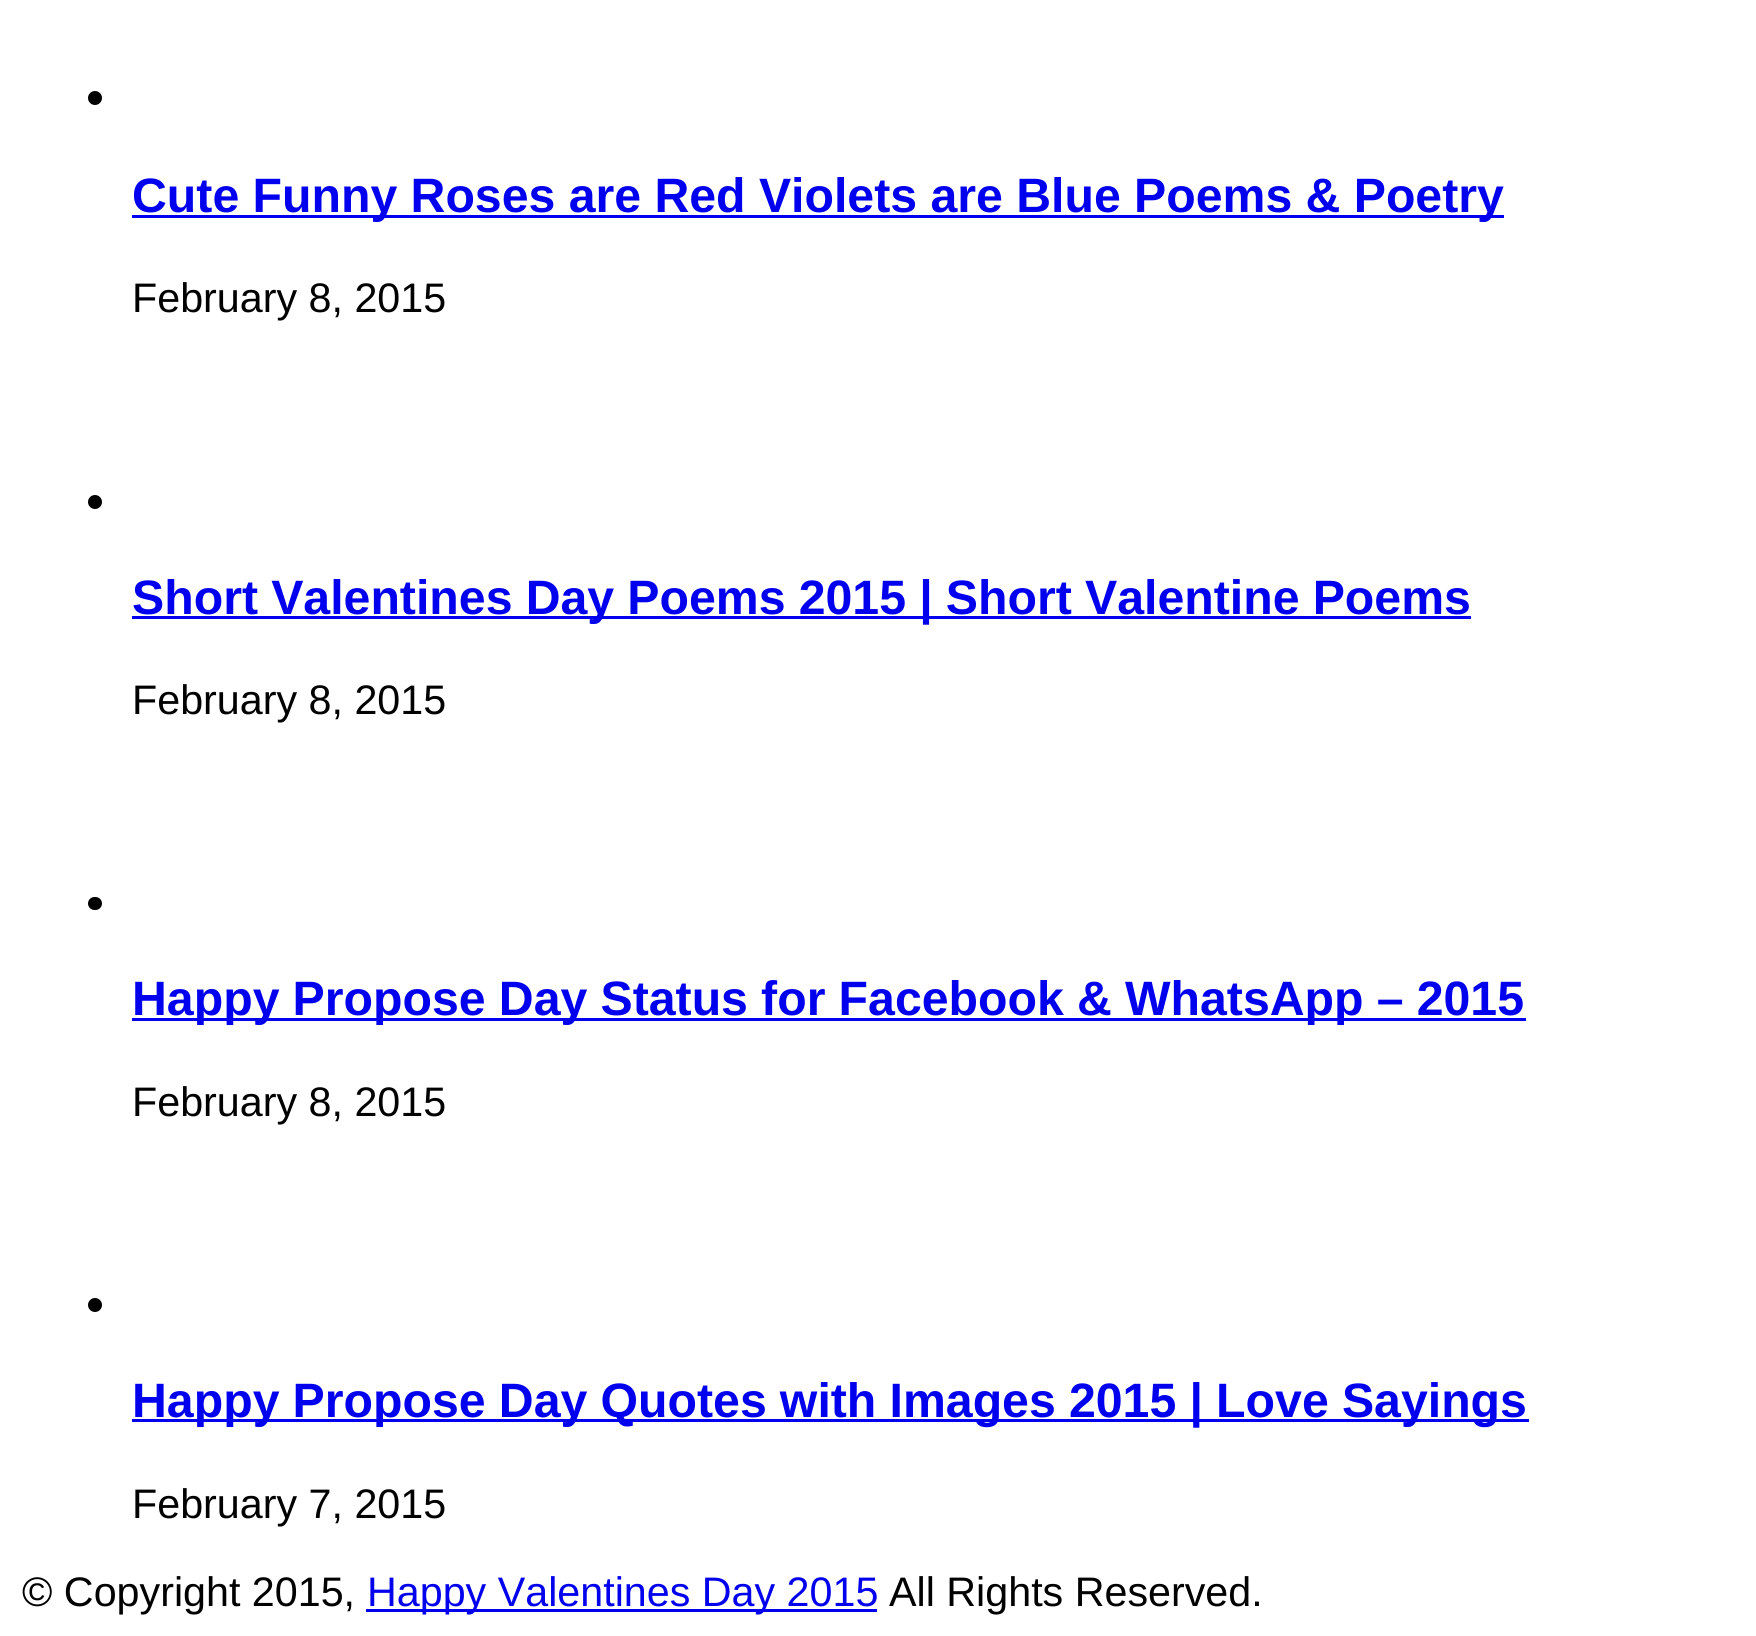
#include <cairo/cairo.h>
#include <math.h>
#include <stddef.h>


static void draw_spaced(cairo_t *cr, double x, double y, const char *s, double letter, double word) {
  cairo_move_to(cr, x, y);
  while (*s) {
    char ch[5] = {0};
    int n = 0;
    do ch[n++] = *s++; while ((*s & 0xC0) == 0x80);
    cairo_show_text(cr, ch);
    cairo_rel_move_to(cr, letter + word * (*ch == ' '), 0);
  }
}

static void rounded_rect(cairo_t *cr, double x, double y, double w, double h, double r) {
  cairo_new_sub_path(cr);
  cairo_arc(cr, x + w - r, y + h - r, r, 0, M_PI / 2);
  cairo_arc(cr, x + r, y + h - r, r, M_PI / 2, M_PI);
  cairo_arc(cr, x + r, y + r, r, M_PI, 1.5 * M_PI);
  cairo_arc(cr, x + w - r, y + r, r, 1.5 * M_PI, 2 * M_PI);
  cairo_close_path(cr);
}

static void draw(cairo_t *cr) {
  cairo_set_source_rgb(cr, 1, 1, 1);
  cairo_paint(cr);
  cairo_set_source_rgb(cr, 0, 0, 0);
  cairo_arc(cr, 95, 98, 7, 0, 2 * M_PI);
  cairo_fill(cr);
  cairo_set_source_rgb(cr, 0, 0, 238 / 255.0);
  cairo_rectangle(cr, 132, 215, 1372, 3);
  cairo_fill(cr);
  cairo_set_source_rgb(cr, 0, 0, 0);
  cairo_arc(cr, 95, 502, 7, 0, 2 * M_PI);
  cairo_fill(cr);
  cairo_set_source_rgb(cr, 0, 0, 238 / 255.0);
  cairo_rectangle(cr, 132, 616, 1339, 3);
  cairo_fill(cr);
  cairo_set_source_rgb(cr, 0, 0, 0);
  rounded_rect(cr, 88, 897, 14, 13, 6.5);
  cairo_fill(cr);
  cairo_set_source_rgb(cr, 0, 0, 238 / 255.0);
  cairo_rectangle(cr, 132, 1018, 1394, 3);
  cairo_fill(cr);
  cairo_set_source_rgb(cr, 0, 0, 0);
  cairo_arc(cr, 95, 1305, 7, 0, 2 * M_PI);
  cairo_fill(cr);
  cairo_set_source_rgb(cr, 0, 0, 238 / 255.0);
  cairo_rectangle(cr, 132, 1419, 1397, 3);
  cairo_fill(cr);
  cairo_rectangle(cr, 366, 1609, 511, 3);
  cairo_fill(cr);
  cairo_select_font_face(cr, "Liberation Sans", CAIRO_FONT_SLANT_NORMAL, CAIRO_FONT_WEIGHT_BOLD);
  cairo_set_font_size(cr, 48.25);
  draw_spaced(cr, 132, 212, "Cute Funny Roses are Red Violets are Blue Poems & Poetry", 0, -0.1);
  cairo_select_font_face(cr, "Liberation Sans", CAIRO_FONT_SLANT_NORMAL, CAIRO_FONT_WEIGHT_NORMAL);
  cairo_set_font_size(cr, 41.25);
  cairo_set_source_rgb(cr, 0, 0, 0);
  cairo_move_to(cr, 132, 312);
  cairo_show_text(cr, "February 8, 2015");
  cairo_select_font_face(cr, "Liberation Sans", CAIRO_FONT_SLANT_NORMAL, CAIRO_FONT_WEIGHT_BOLD);
  cairo_set_font_size(cr, 48.25);
  cairo_set_source_rgb(cr, 0, 0, 238 / 255.0);
  draw_spaced(cr, 132, 614, "Short Valentines Day Poems 2015 | Short Valentine Poems", 0, -0.25);
  cairo_select_font_face(cr, "Liberation Sans", CAIRO_FONT_SLANT_NORMAL, CAIRO_FONT_WEIGHT_NORMAL);
  cairo_set_font_size(cr, 41.25);
  cairo_set_source_rgb(cr, 0, 0, 0);
  cairo_move_to(cr, 132, 714);
  cairo_show_text(cr, "February 8, 2015");
  cairo_select_font_face(cr, "Liberation Sans", CAIRO_FONT_SLANT_NORMAL, CAIRO_FONT_WEIGHT_BOLD);
  cairo_set_font_size(cr, 48.25);
  cairo_set_source_rgb(cr, 0, 0, 238 / 255.0);
  draw_spaced(cr, 132, 1015, "Happy Propose Day Status for Facebook & WhatsApp – 2015", 0, -0.25);
  cairo_select_font_face(cr, "Liberation Sans", CAIRO_FONT_SLANT_NORMAL, CAIRO_FONT_WEIGHT_NORMAL);
  cairo_set_font_size(cr, 41.25);
  cairo_set_source_rgb(cr, 0, 0, 0);
  cairo_move_to(cr, 132, 1116);
  cairo_show_text(cr, "February 8, 2015");
  cairo_select_font_face(cr, "Liberation Sans", CAIRO_FONT_SLANT_NORMAL, CAIRO_FONT_WEIGHT_BOLD);
  cairo_set_font_size(cr, 48.25);
  cairo_set_source_rgb(cr, 0, 0, 238 / 255.0);
  draw_spaced(cr, 132, 1417, "Happy Propose Day Quotes with Images 2015 | Love Sayings", 0, -0.25);
  cairo_select_font_face(cr, "Liberation Sans", CAIRO_FONT_SLANT_NORMAL, CAIRO_FONT_WEIGHT_NORMAL);
  cairo_set_font_size(cr, 41.25);
  cairo_set_source_rgb(cr, 0, 0, 0);
  cairo_move_to(cr, 132, 1518);
  cairo_show_text(cr, "February 7, 2015");
  cairo_move_to(cr, 22, 1606);
  cairo_show_text(cr, "© Copyright 2015,");
  cairo_set_source_rgb(cr, 0, 0, 238 / 255.0);
  cairo_move_to(cr, 367, 1606);
  cairo_show_text(cr, "Happy Valentines Day 2015");
  cairo_set_source_rgb(cr, 0, 0, 0);
  cairo_move_to(cr, 889, 1606);
  cairo_show_text(cr, "All Rights Reserved.");
}

int main(void) {
  cairo_surface_t *surface = cairo_image_surface_create(CAIRO_FORMAT_RGB24, 1756, 1636);
  cairo_t *cr = cairo_create(surface);
  cairo_font_options_t *options = cairo_font_options_create();
  cairo_font_options_set_hint_metrics(options, CAIRO_HINT_METRICS_OFF);
  cairo_font_options_set_hint_style(options, CAIRO_HINT_STYLE_NONE);
  cairo_set_font_options(cr, options);
  cairo_set_miter_limit(cr, 4);
  draw(cr);
  cairo_surface_write_to_png(surface, "out.png");
  cairo_font_options_destroy(options);
  cairo_destroy(cr);
  cairo_surface_destroy(surface);
  return 0;
}
